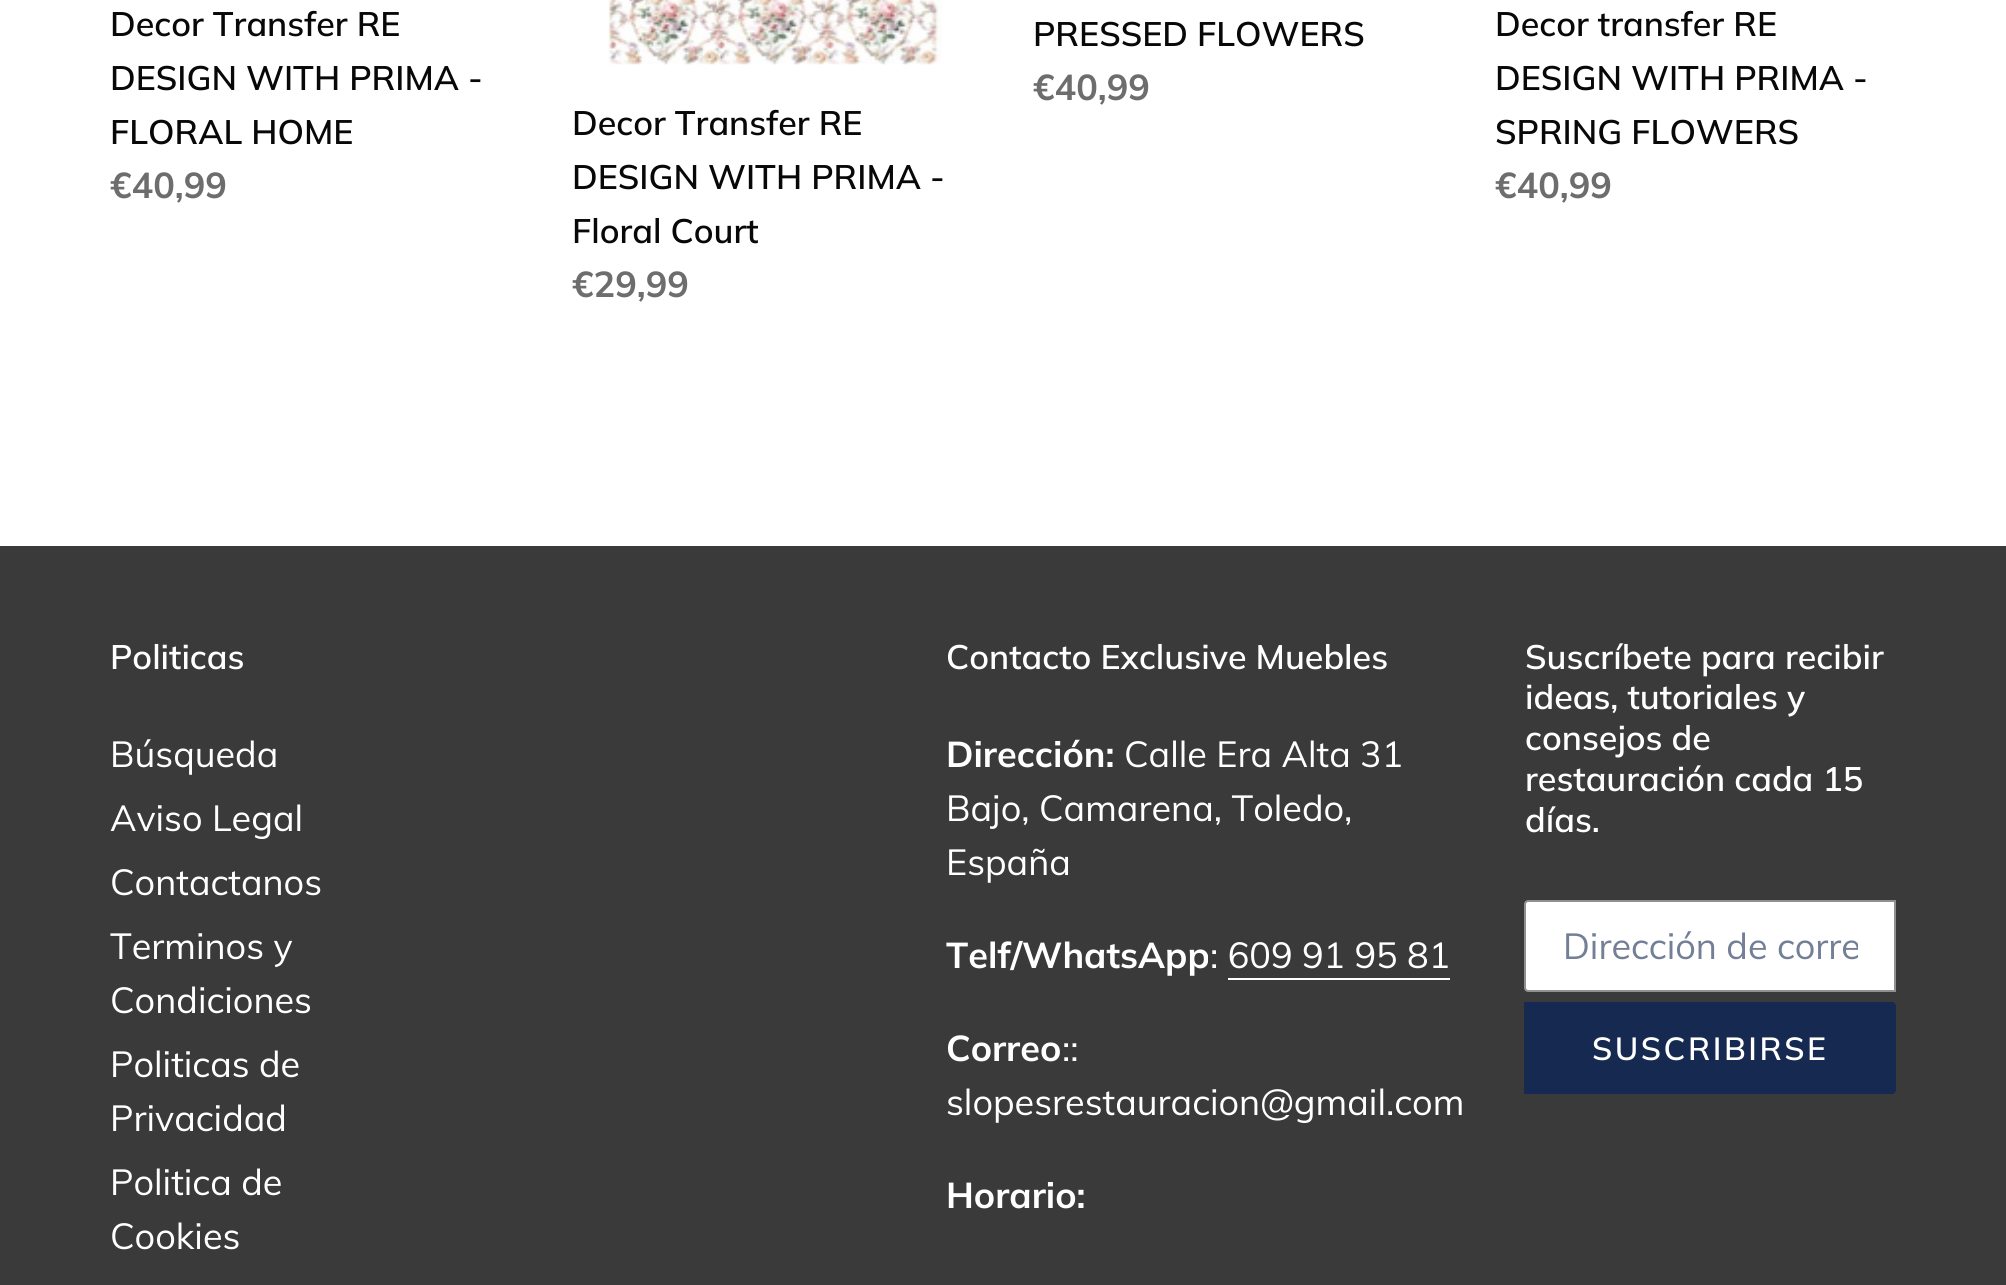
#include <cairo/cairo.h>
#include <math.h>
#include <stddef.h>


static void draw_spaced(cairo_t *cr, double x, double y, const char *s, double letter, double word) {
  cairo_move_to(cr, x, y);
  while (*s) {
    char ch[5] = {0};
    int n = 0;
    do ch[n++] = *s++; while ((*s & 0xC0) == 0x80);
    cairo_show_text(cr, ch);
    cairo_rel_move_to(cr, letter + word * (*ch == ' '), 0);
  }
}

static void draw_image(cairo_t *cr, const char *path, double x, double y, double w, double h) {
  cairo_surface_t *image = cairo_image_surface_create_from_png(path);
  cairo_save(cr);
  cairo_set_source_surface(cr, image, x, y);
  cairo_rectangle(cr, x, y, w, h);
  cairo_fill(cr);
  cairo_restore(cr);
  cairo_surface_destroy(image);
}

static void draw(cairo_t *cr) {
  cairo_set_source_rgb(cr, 1, 1, 1);
  cairo_paint(cr);
  draw_image(cr, "images/1.png", 608, 0, 334, 65);
  cairo_set_source_rgb(cr, 58 / 255.0, 58 / 255.0, 58 / 255.0);
  cairo_rectangle(cr, 0, 546, 2006, 739);
  cairo_fill(cr);
  cairo_set_source_rgb(cr, 1, 1, 1);
  cairo_rectangle(cr, 1228, 978, 222, 2);
  cairo_fill(cr);
  cairo_new_path(cr);
  cairo_move_to(cr, 1528, 901);
  cairo_line_to(cr, 1895, 901);
  cairo_line_to(cr, 1895, 991);
  cairo_line_to(cr, 1528, 991);
  cairo_curve_to(cr, 1526.5, 991, 1525, 989.5, 1525, 988);
  cairo_line_to(cr, 1525, 904);
  cairo_curve_to(cr, 1525, 902.5, 1526.5, 901, 1528, 901);
  cairo_close_path(cr);
  cairo_fill_preserve(cr);
  cairo_set_source_rgb(cr, 144 / 255.0, 144 / 255.0, 144 / 255.0);
  cairo_stroke(cr);
  cairo_set_source_rgb(cr, 22 / 255.0, 41 / 255.0, 80 / 255.0);
  cairo_new_path(cr);
  cairo_move_to(cr, 1524, 1002);
  cairo_line_to(cr, 1892, 1002);
  cairo_curve_to(cr, 1894, 1002, 1896, 1004, 1896, 1006);
  cairo_line_to(cr, 1896, 1090);
  cairo_curve_to(cr, 1896, 1092, 1894, 1094, 1892, 1094);
  cairo_line_to(cr, 1524, 1094);
  cairo_close_path(cr);
  cairo_fill(cr);
  cairo_select_font_face(cr, "Muli SemiBold", CAIRO_FONT_SLANT_NORMAL, CAIRO_FONT_WEIGHT_NORMAL);
  cairo_set_font_size(cr, 34);
  cairo_set_source_rgb(cr, 8 / 255.0, 8 / 255.0, 8 / 255.0);
  cairo_move_to(cr, 110, 36);
  cairo_show_text(cr, "Decor Transfer RE");
  cairo_move_to(cr, 110, 90);
  cairo_show_text(cr, "DESIGN WITH PRIMA -");
  cairo_move_to(cr, 110, 144);
  cairo_show_text(cr, "FLORAL HOME");
  cairo_select_font_face(cr, "Muli", CAIRO_FONT_SLANT_NORMAL, CAIRO_FONT_WEIGHT_BOLD);
  cairo_set_font_size(cr, 36);
  cairo_set_source_rgb(cr, 109 / 255.0, 109 / 255.0, 109 / 255.0);
  cairo_move_to(cr, 110, 198);
  cairo_show_text(cr, "€40,99");
  cairo_select_font_face(cr, "Muli SemiBold", CAIRO_FONT_SLANT_NORMAL, CAIRO_FONT_WEIGHT_NORMAL);
  cairo_set_font_size(cr, 34);
  cairo_set_source_rgb(cr, 8 / 255.0, 8 / 255.0, 8 / 255.0);
  cairo_move_to(cr, 1033, 46);
  cairo_show_text(cr, "PRESSED FLOWERS");
  cairo_select_font_face(cr, "Muli", CAIRO_FONT_SLANT_NORMAL, CAIRO_FONT_WEIGHT_BOLD);
  cairo_set_font_size(cr, 36);
  cairo_set_source_rgb(cr, 109 / 255.0, 109 / 255.0, 109 / 255.0);
  cairo_move_to(cr, 1033, 100);
  cairo_show_text(cr, "€40,99");
  cairo_select_font_face(cr, "Muli SemiBold", CAIRO_FONT_SLANT_NORMAL, CAIRO_FONT_WEIGHT_NORMAL);
  cairo_set_font_size(cr, 34);
  cairo_set_source_rgb(cr, 8 / 255.0, 8 / 255.0, 8 / 255.0);
  cairo_move_to(cr, 1495, 36);
  cairo_show_text(cr, "Decor transfer RE");
  cairo_move_to(cr, 1495, 90);
  cairo_show_text(cr, "DESIGN WITH PRIMA -");
  cairo_move_to(cr, 1495, 144);
  cairo_show_text(cr, "SPRING FLOWERS");
  cairo_select_font_face(cr, "Muli", CAIRO_FONT_SLANT_NORMAL, CAIRO_FONT_WEIGHT_BOLD);
  cairo_set_font_size(cr, 36);
  cairo_set_source_rgb(cr, 109 / 255.0, 109 / 255.0, 109 / 255.0);
  cairo_move_to(cr, 1495, 198);
  cairo_show_text(cr, "€40,99");
  cairo_select_font_face(cr, "Muli SemiBold", CAIRO_FONT_SLANT_NORMAL, CAIRO_FONT_WEIGHT_NORMAL);
  cairo_set_font_size(cr, 34);
  cairo_set_source_rgb(cr, 8 / 255.0, 8 / 255.0, 8 / 255.0);
  cairo_move_to(cr, 572, 135);
  cairo_show_text(cr, "Decor Transfer RE");
  cairo_move_to(cr, 572, 189);
  cairo_show_text(cr, "DESIGN WITH PRIMA -");
  cairo_move_to(cr, 572, 243);
  cairo_show_text(cr, "Floral Court");
  cairo_select_font_face(cr, "Muli", CAIRO_FONT_SLANT_NORMAL, CAIRO_FONT_WEIGHT_BOLD);
  cairo_set_font_size(cr, 36);
  cairo_set_source_rgb(cr, 109 / 255.0, 109 / 255.0, 109 / 255.0);
  cairo_move_to(cr, 572, 297);
  cairo_show_text(cr, "€29,99");
  cairo_select_font_face(cr, "Muli SemiBold", CAIRO_FONT_SLANT_NORMAL, CAIRO_FONT_WEIGHT_NORMAL);
  cairo_set_font_size(cr, 34);
  cairo_set_source_rgb(cr, 1, 1, 1);
  cairo_move_to(cr, 110, 669);
  cairo_show_text(cr, "Politicas");
  cairo_select_font_face(cr, "Muli", CAIRO_FONT_SLANT_NORMAL, CAIRO_FONT_WEIGHT_NORMAL);
  cairo_set_font_size(cr, 36);
  cairo_move_to(cr, 110, 767);
  cairo_show_text(cr, "Búsqueda");
  cairo_move_to(cr, 110, 831);
  cairo_show_text(cr, "Aviso Legal");
  cairo_move_to(cr, 110, 895);
  cairo_show_text(cr, "Contactanos");
  cairo_move_to(cr, 110, 959);
  cairo_show_text(cr, "Terminos y");
  cairo_move_to(cr, 110, 1013);
  cairo_show_text(cr, "Condiciones");
  cairo_move_to(cr, 110, 1077);
  cairo_show_text(cr, "Politicas de");
  cairo_move_to(cr, 110, 1131);
  cairo_show_text(cr, "Privacidad");
  cairo_move_to(cr, 110, 1195);
  cairo_show_text(cr, "Politica de");
  cairo_move_to(cr, 110, 1249);
  cairo_show_text(cr, "Cookies");
  cairo_select_font_face(cr, "Muli SemiBold", CAIRO_FONT_SLANT_NORMAL, CAIRO_FONT_WEIGHT_NORMAL);
  cairo_set_font_size(cr, 34);
  cairo_move_to(cr, 946, 669);
  cairo_show_text(cr, "Contacto Exclusive Muebles");
  cairo_select_font_face(cr, "Muli", CAIRO_FONT_SLANT_NORMAL, CAIRO_FONT_WEIGHT_BOLD);
  cairo_set_font_size(cr, 36);
  cairo_move_to(cr, 946, 767);
  cairo_show_text(cr, "Dirección:");
  cairo_select_font_face(cr, "Muli", CAIRO_FONT_SLANT_NORMAL, CAIRO_FONT_WEIGHT_NORMAL);
  cairo_move_to(cr, 1124, 767);
  cairo_show_text(cr, "Calle Era Alta 31");
  cairo_move_to(cr, 946, 821);
  cairo_show_text(cr, "Bajo, Camarena, Toledo,");
  cairo_move_to(cr, 946, 875);
  cairo_show_text(cr, "España");
  cairo_select_font_face(cr, "Muli", CAIRO_FONT_SLANT_NORMAL, CAIRO_FONT_WEIGHT_BOLD);
  cairo_move_to(cr, 946, 968);
  cairo_show_text(cr, "Telf/WhatsApp");
  cairo_select_font_face(cr, "Muli", CAIRO_FONT_SLANT_NORMAL, CAIRO_FONT_WEIGHT_NORMAL);
  cairo_move_to(cr, 1210, 968);
  cairo_show_text(cr, ": 609 91 95 81");
  cairo_select_font_face(cr, "Muli", CAIRO_FONT_SLANT_NORMAL, CAIRO_FONT_WEIGHT_BOLD);
  cairo_move_to(cr, 946, 1061);
  cairo_show_text(cr, "Correo");
  cairo_select_font_face(cr, "Muli", CAIRO_FONT_SLANT_NORMAL, CAIRO_FONT_WEIGHT_NORMAL);
  cairo_move_to(cr, 1062, 1061);
  cairo_show_text(cr, "::");
  cairo_move_to(cr, 946, 1115);
  cairo_show_text(cr, "slopesrestauracion@gmail.com");
  cairo_select_font_face(cr, "Muli", CAIRO_FONT_SLANT_NORMAL, CAIRO_FONT_WEIGHT_BOLD);
  cairo_move_to(cr, 946, 1208);
  cairo_show_text(cr, "Horario:");
  cairo_select_font_face(cr, "Muli SemiBold", CAIRO_FONT_SLANT_NORMAL, CAIRO_FONT_WEIGHT_NORMAL);
  cairo_set_font_size(cr, 34);
  cairo_move_to(cr, 1525, 669);
  cairo_show_text(cr, "Suscríbete para recibir");
  cairo_move_to(cr, 1525, 709);
  cairo_show_text(cr, "ideas, tutoriales y");
  cairo_move_to(cr, 1525, 750);
  cairo_show_text(cr, "consejos de");
  cairo_move_to(cr, 1525, 791);
  cairo_show_text(cr, "restauración cada 15");
  cairo_move_to(cr, 1525, 832);
  cairo_show_text(cr, "días.");
  cairo_save(cr);
  cairo_rectangle(cr, 1562, 922, 296, 46);
  cairo_clip(cr);
  cairo_select_font_face(cr, "Muli", CAIRO_FONT_SLANT_NORMAL, CAIRO_FONT_WEIGHT_NORMAL);
  cairo_set_font_size(cr, 36);
  cairo_set_source_rgb(cr, 115 / 255.0, 127 / 255.0, 150 / 255.0);
  cairo_move_to(cr, 1563, 959);
  cairo_show_text(cr, "Dirección de corre");
  cairo_restore(cr);
  cairo_set_font_size(cr, 32);
  draw_spaced(cr, 1592, 1060, "SUSCRIBIRSE", 2.5, 0);
}

int main(void) {
  cairo_surface_t *surface = cairo_image_surface_create(CAIRO_FORMAT_RGB24, 2006, 1285);
  cairo_t *cr = cairo_create(surface);
  cairo_font_options_t *options = cairo_font_options_create();
  cairo_font_options_set_hint_metrics(options, CAIRO_HINT_METRICS_OFF);
  cairo_font_options_set_hint_style(options, CAIRO_HINT_STYLE_NONE);
  cairo_set_font_options(cr, options);
  cairo_set_miter_limit(cr, 4);
  draw(cr);
  cairo_surface_write_to_png(surface, "out.png");
  cairo_font_options_destroy(options);
  cairo_destroy(cr);
  cairo_surface_destroy(surface);
  return 0;
}
